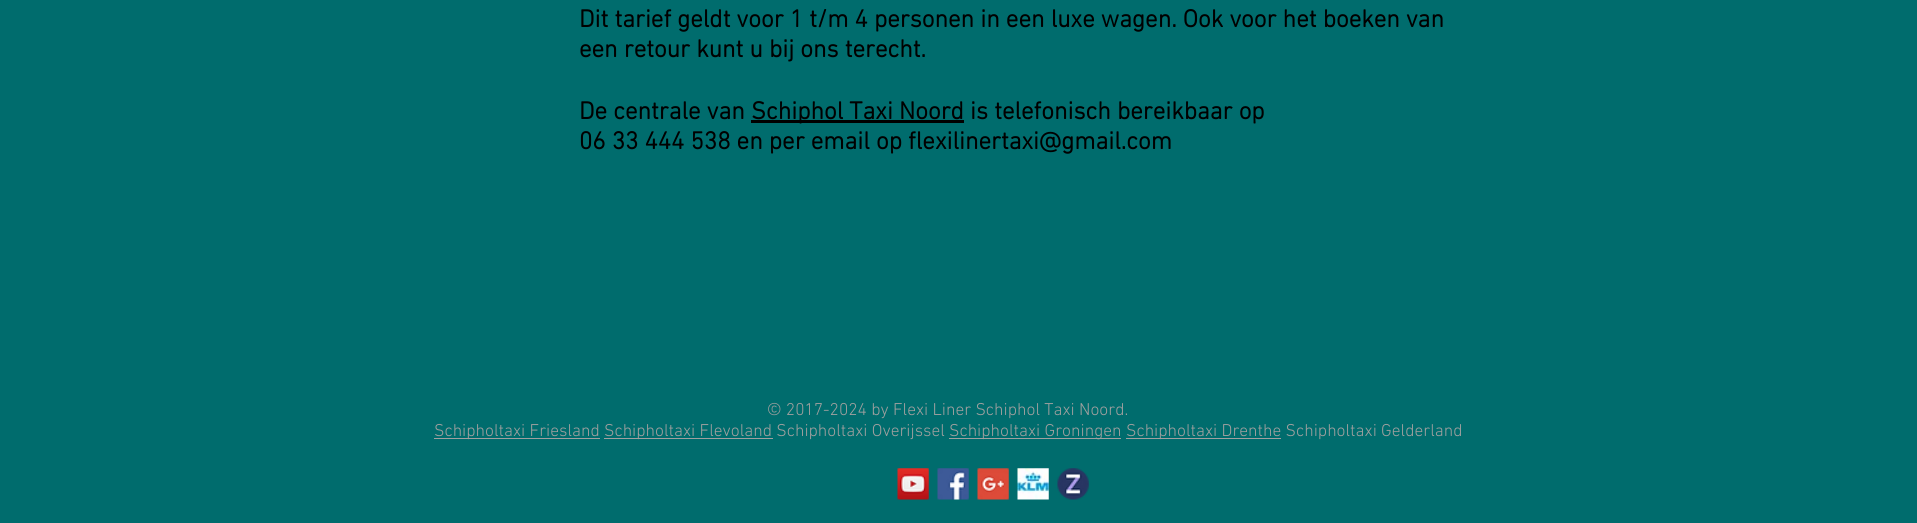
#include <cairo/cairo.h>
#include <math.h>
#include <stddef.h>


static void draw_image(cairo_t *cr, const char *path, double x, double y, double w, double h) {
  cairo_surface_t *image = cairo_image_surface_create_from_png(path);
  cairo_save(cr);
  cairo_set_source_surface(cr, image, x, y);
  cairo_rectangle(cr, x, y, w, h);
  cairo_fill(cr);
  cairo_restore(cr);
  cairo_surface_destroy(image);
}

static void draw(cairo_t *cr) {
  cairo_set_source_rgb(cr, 0, 108 / 255.0, 109 / 255.0);
  cairo_paint(cr);
  cairo_set_source_rgb(cr, 0, 0, 0);
  cairo_rectangle(cr, 751, 120, 213, 3);
  cairo_fill(cr);
  cairo_set_source_rgb(cr, 160 / 255.0, 160 / 255.0, 159 / 255.0);
  cairo_rectangle(cr, 434, 438, 166, 1);
  cairo_fill(cr);
  cairo_rectangle(cr, 604, 438, 169, 1);
  cairo_fill(cr);
  cairo_rectangle(cr, 949, 438, 172, 1);
  cairo_fill(cr);
  cairo_rectangle(cr, 1126, 438, 155, 1);
  cairo_fill(cr);
  draw_image(cr, "images/1.png", 897, 468, 32, 32);
  draw_image(cr, "images/2.png", 937, 468, 32, 32);
  draw_image(cr, "images/3.png", 977, 468, 32, 32);
  draw_image(cr, "images/4.png", 1017, 468, 32, 32);
  draw_image(cr, "images/5.png", 1057, 468, 32, 32);
  cairo_select_font_face(cr, "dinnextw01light", CAIRO_FONT_SLANT_NORMAL, CAIRO_FONT_WEIGHT_BOLD);
  cairo_set_font_size(cr, 25);
  cairo_set_source_rgb(cr, 0, 0, 0);
  cairo_move_to(cr, 579, 27);
  cairo_show_text(cr, "Dit tarief geldt voor 1 t/m 4 personen in een luxe wagen. Ook voor het boeken van");
  cairo_move_to(cr, 579, 57);
  cairo_show_text(cr, "een retour kunt u bij ons terecht.");
  cairo_move_to(cr, 579, 119);
  cairo_show_text(cr, "De centrale van");
  cairo_move_to(cr, 751, 119);
  cairo_show_text(cr, "Schiphol Taxi Noord is telefonisch bereikbaar op");
  cairo_move_to(cr, 579, 149);
  cairo_show_text(cr, "06 33 444 538 en per email op flexilinertaxi@gmail.com");
  cairo_select_font_face(cr, "dinnextw01light Light", CAIRO_FONT_SLANT_NORMAL, CAIRO_FONT_WEIGHT_NORMAL);
  cairo_set_font_size(cr, 17.5);
  cairo_set_source_rgb(cr, 160 / 255.0, 160 / 255.0, 159 / 255.0);
  cairo_move_to(cr, 767, 415);
  cairo_show_text(cr, "© 2017-2024 by Flexi Liner Schiphol Taxi Noord.");
  cairo_move_to(cr, 434, 436);
  cairo_show_text(cr, "Schipholtaxi Friesland");
  cairo_move_to(cr, 604, 436);
  cairo_show_text(cr, "Schipholtaxi Flevoland Schipholtaxi Overijssel");
  cairo_move_to(cr, 949, 436);
  cairo_show_text(cr, "Schipholtaxi Groningen");
  cairo_move_to(cr, 1126, 436);
  cairo_show_text(cr, "Schipholtaxi Drenthe Schipholtaxi Gelderland");
}

int main(void) {
  cairo_surface_t *surface = cairo_image_surface_create(CAIRO_FORMAT_RGB24, 1917, 523);
  cairo_t *cr = cairo_create(surface);
  cairo_font_options_t *options = cairo_font_options_create();
  cairo_font_options_set_hint_metrics(options, CAIRO_HINT_METRICS_OFF);
  cairo_font_options_set_hint_style(options, CAIRO_HINT_STYLE_NONE);
  cairo_set_font_options(cr, options);
  cairo_set_miter_limit(cr, 4);
  draw(cr);
  cairo_surface_write_to_png(surface, "out.png");
  cairo_font_options_destroy(options);
  cairo_destroy(cr);
  cairo_surface_destroy(surface);
  return 0;
}
